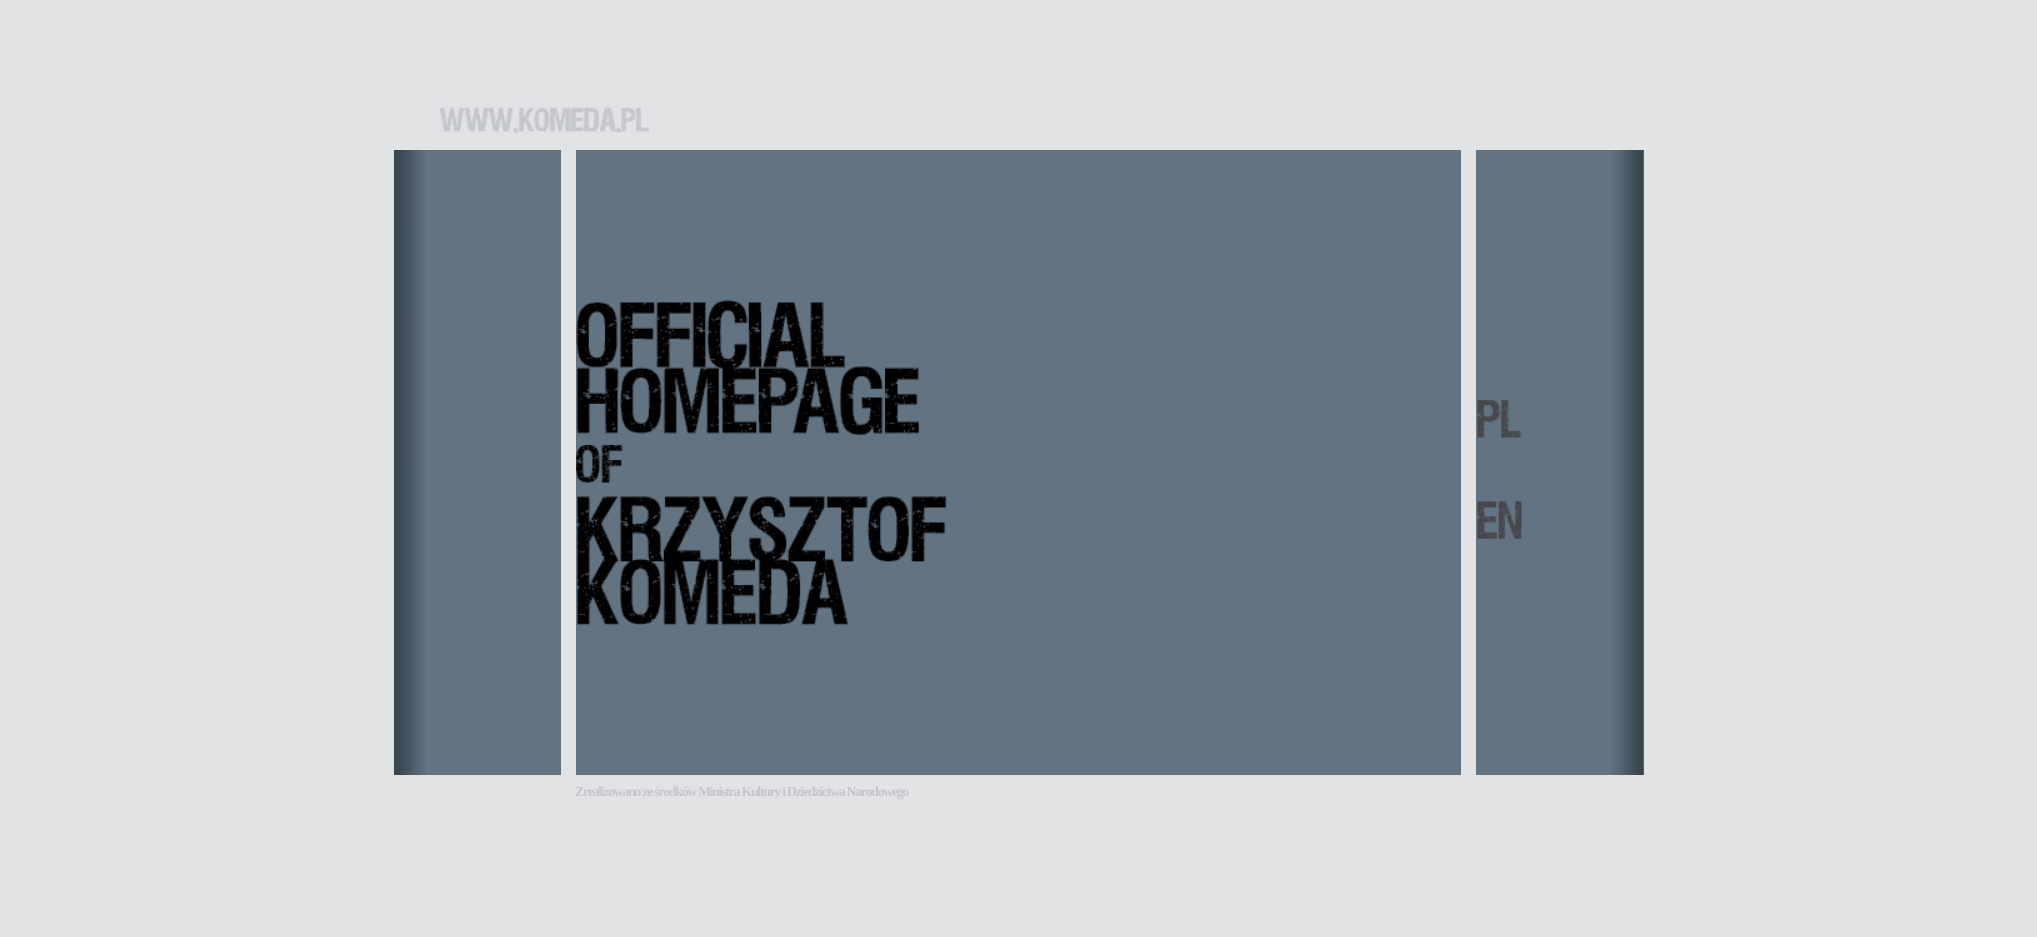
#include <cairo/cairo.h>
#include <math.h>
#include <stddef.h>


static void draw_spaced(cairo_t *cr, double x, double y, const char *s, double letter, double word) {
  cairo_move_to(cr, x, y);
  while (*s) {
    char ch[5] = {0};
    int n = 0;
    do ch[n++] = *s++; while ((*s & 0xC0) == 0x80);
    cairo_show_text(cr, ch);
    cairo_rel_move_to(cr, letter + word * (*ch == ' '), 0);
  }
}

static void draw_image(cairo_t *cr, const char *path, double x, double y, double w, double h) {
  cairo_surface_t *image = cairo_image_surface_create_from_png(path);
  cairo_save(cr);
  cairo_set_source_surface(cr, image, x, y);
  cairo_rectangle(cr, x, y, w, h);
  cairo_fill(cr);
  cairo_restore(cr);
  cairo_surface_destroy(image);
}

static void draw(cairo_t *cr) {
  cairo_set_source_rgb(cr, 226 / 255.0, 227 / 255.0, 229 / 255.0);
  cairo_paint(cr);
  draw_image(cr, "images/1.png", 434, 100, 221, 36);
  cairo_set_source_rgb(cr, 98 / 255.0, 116 / 255.0, 130 / 255.0);
  cairo_rectangle(cr, 425, 150, 136, 625);
  cairo_fill(cr);
  draw_image(cr, "images/2.png", 393, 150, 32, 625);
  cairo_rectangle(cr, 576, 150, 885, 625);
  cairo_fill(cr);
  draw_image(cr, "images/3.png", 576, 300, 371, 326);
  cairo_rectangle(cr, 1476, 150, 168, 625);
  cairo_fill(cr);
  draw_image(cr, "images/4.png", 1612, 150, 32, 625);
  draw_image(cr, "images/5.png", 1476, 400, 46, 38);
  draw_image(cr, "images/6.png", 1476, 501, 47, 38);
  cairo_select_font_face(cr, "Liberation Serif", CAIRO_FONT_SLANT_NORMAL, CAIRO_FONT_WEIGHT_BOLD);
  cairo_set_font_size(cr, 13.75);
  cairo_set_source_rgb(cr, 197 / 255.0, 198 / 255.0, 203 / 255.0);
  draw_spaced(cr, 575, 796, "Zrealizowano ze środków Ministra Kultury i Dziedzictwa Narodowego", -1.25, 0);
}

int main(void) {
  cairo_surface_t *surface = cairo_image_surface_create(CAIRO_FORMAT_RGB24, 2037, 937);
  cairo_t *cr = cairo_create(surface);
  cairo_font_options_t *options = cairo_font_options_create();
  cairo_font_options_set_hint_metrics(options, CAIRO_HINT_METRICS_OFF);
  cairo_font_options_set_hint_style(options, CAIRO_HINT_STYLE_NONE);
  cairo_set_font_options(cr, options);
  cairo_set_miter_limit(cr, 4);
  draw(cr);
  cairo_surface_write_to_png(surface, "out.png");
  cairo_font_options_destroy(options);
  cairo_destroy(cr);
  cairo_surface_destroy(surface);
  return 0;
}
